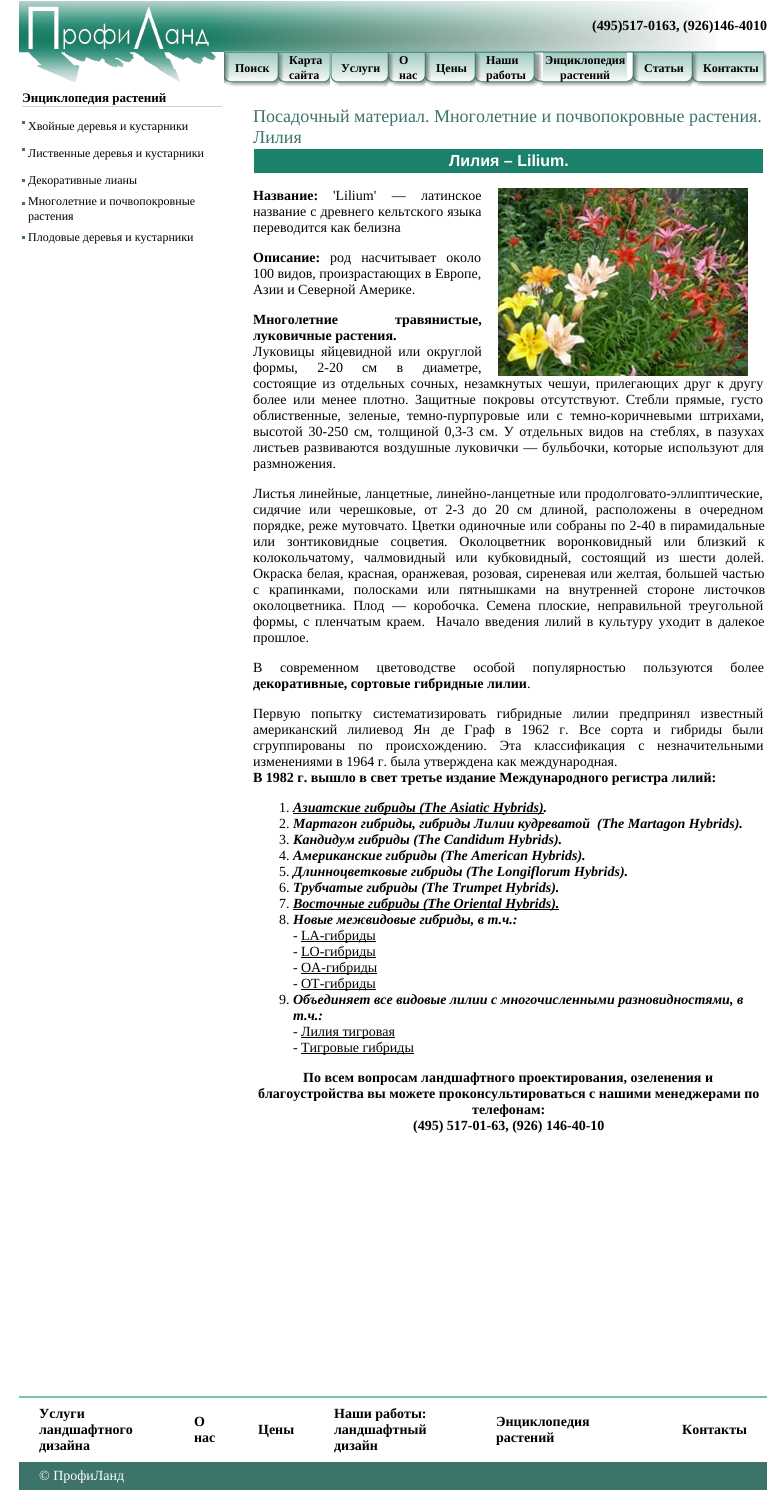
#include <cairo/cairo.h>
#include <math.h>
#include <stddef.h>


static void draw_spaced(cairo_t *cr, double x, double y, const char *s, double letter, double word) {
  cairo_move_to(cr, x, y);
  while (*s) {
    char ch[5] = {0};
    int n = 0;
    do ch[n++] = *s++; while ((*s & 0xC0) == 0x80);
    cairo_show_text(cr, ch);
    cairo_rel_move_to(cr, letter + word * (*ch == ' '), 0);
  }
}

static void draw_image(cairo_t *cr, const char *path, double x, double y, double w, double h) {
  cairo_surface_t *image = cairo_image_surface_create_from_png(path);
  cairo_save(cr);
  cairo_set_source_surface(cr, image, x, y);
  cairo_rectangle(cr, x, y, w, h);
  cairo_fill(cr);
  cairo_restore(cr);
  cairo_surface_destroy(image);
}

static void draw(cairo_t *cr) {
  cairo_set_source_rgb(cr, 1, 1, 1);
  cairo_paint(cr);
  draw_image(cr, "images/1.png", 215, 1, 501, 50);
  draw_image(cr, "images/2.png", 19, 1, 196, 50);
  draw_image(cr, "images/3.png", 19, 51, 205, 31);
  draw_image(cr, "images/4.png", 224, 51, 9, 35);
  draw_image(cr, "images/5.png", 233, 51, 39, 36);
  draw_image(cr, "images/6.png", 272, 51, 6, 36);
  draw_image(cr, "images/4.png", 278, 51, 9, 35);
  draw_image(cr, "images/7.png", 287, 51, 37, 36);
  draw_image(cr, "images/6.png", 324, 51, 6, 36);
  draw_image(cr, "images/8.png", 330, 51, 9, 36);
  draw_image(cr, "images/9.png", 339, 51, 43, 36);
  draw_image(cr, "images/6.png", 382, 51, 6, 36);
  draw_image(cr, "images/4.png", 388, 51, 9, 35);
  draw_image(cr, "images/10.png", 397, 51, 22, 36);
  draw_image(cr, "images/6.png", 419, 51, 6, 36);
  draw_image(cr, "images/11.png", 425, 51, 9, 35);
  draw_image(cr, "images/12.png", 434, 51, 35, 36);
  draw_image(cr, "images/6.png", 469, 51, 6, 36);
  draw_image(cr, "images/4.png", 475, 51, 9, 35);
  draw_image(cr, "images/13.png", 484, 51, 44, 36);
  draw_image(cr, "images/6.png", 528, 51, 6, 36);
  draw_image(cr, "images/14.png", 534, 51, 9, 35);
  draw_image(cr, "images/15.png", 543, 51, 84, 36);
  draw_image(cr, "images/16.png", 627, 51, 6, 36);
  draw_image(cr, "images/4.png", 633, 51, 9, 35);
  draw_image(cr, "images/13.png", 642, 51, 44, 36);
  draw_image(cr, "images/6.png", 686, 51, 6, 36);
  draw_image(cr, "images/4.png", 692, 51, 9, 35);
  draw_image(cr, "images/17.png", 701, 51, 60, 36);
  draw_image(cr, "images/18.png", 761, 51, 6, 36);
  cairo_set_source_rgb(cr, 194 / 255.0, 215 / 255.0, 210 / 255.0);
  cairo_rectangle(cr, 22, 106, 200, 1);
  cairo_fill(cr);
  cairo_set_source_rgb(cr, 60 / 255.0, 116 / 255.0, 107 / 255.0);
  cairo_rectangle(cr, 22, 121, 3, 3);
  cairo_fill(cr);
  cairo_rectangle(cr, 22, 148, 3, 3);
  cairo_fill(cr);
  cairo_rectangle(cr, 22, 179, 3, 3);
  cairo_fill(cr);
  cairo_rectangle(cr, 22, 202, 3, 3);
  cairo_fill(cr);
  cairo_rectangle(cr, 22, 236, 3, 3);
  cairo_fill(cr);
  cairo_set_source_rgb(cr, 28 / 255.0, 129 / 255.0, 106 / 255.0);
  cairo_rectangle(cr, 254, 149, 509, 24);
  cairo_fill(cr);
  draw_image(cr, "images/19.png", 498, 188, 250, 188);
  cairo_set_source_rgb(cr, 0, 0, 0);
  cairo_rectangle(cr, 293, 813, 251, 1);
  cairo_fill(cr);
  cairo_rectangle(cr, 293, 909, 266, 1);
  cairo_fill(cr);
  cairo_rectangle(cr, 301, 941, 75, 1);
  cairo_fill(cr);
  cairo_rectangle(cr, 301, 957, 75, 1);
  cairo_fill(cr);
  cairo_rectangle(cr, 301, 973, 76, 1);
  cairo_fill(cr);
  cairo_rectangle(cr, 301, 989, 75, 1);
  cairo_fill(cr);
  cairo_rectangle(cr, 301, 1037, 94, 1);
  cairo_fill(cr);
  cairo_rectangle(cr, 301, 1053, 113, 1);
  cairo_fill(cr);
  cairo_set_source_rgb(cr, 121 / 255.0, 196 / 255.0, 163 / 255.0);
  cairo_rectangle(cr, 19, 1396, 748, 2);
  cairo_fill(cr);
  cairo_set_source_rgb(cr, 60 / 255.0, 116 / 255.0, 107 / 255.0);
  cairo_rectangle(cr, 19, 1462, 748, 28);
  cairo_fill(cr);
  cairo_select_font_face(cr, "Liberation Serif", CAIRO_FONT_SLANT_NORMAL, CAIRO_FONT_WEIGHT_BOLD);
  cairo_set_font_size(cr, 14);
  cairo_set_source_rgb(cr, 0, 0, 0);
  cairo_move_to(cr, 592, 30);
  cairo_show_text(cr, "(495)517-0163, (926)146-4010");
  cairo_set_font_size(cr, 12);
  cairo_move_to(cr, 235, 72);
  cairo_show_text(cr, "Поиск");
  cairo_move_to(cr, 289, 64);
  cairo_show_text(cr, "Карта");
  cairo_move_to(cr, 289, 79);
  cairo_show_text(cr, "сайта");
  cairo_move_to(cr, 341, 72);
  cairo_show_text(cr, "Услуги");
  cairo_move_to(cr, 399, 64);
  cairo_show_text(cr, "О");
  cairo_move_to(cr, 399, 79);
  cairo_show_text(cr, "нас");
  cairo_move_to(cr, 436, 72);
  cairo_show_text(cr, "Цены");
  cairo_move_to(cr, 486, 64);
  cairo_show_text(cr, "Наши");
  cairo_move_to(cr, 486, 79);
  cairo_show_text(cr, "работы");
  cairo_move_to(cr, 545, 64);
  cairo_show_text(cr, "Энциклопедия");
  cairo_move_to(cr, 560, 79);
  cairo_show_text(cr, "растений");
  cairo_move_to(cr, 644, 72);
  cairo_show_text(cr, "Статьи");
  cairo_move_to(cr, 703, 72);
  cairo_show_text(cr, "Контакты");
  cairo_set_font_size(cr, 13);
  cairo_move_to(cr, 22, 102);
  cairo_show_text(cr, "Энциклопедия растений");
  cairo_select_font_face(cr, "Liberation Serif", CAIRO_FONT_SLANT_NORMAL, CAIRO_FONT_WEIGHT_NORMAL);
  cairo_set_font_size(cr, 12);
  cairo_move_to(cr, 28, 130);
  cairo_show_text(cr, "Хвойные деревья и кустарники");
  cairo_move_to(cr, 28, 157);
  cairo_show_text(cr, "Лиственные деревья и кустарники");
  cairo_move_to(cr, 28, 184);
  cairo_show_text(cr, "Декоративные лианы");
  cairo_move_to(cr, 28, 205);
  cairo_show_text(cr, "Многолетние и почвопокровные");
  cairo_move_to(cr, 28, 220);
  cairo_show_text(cr, "растения");
  cairo_move_to(cr, 28, 241);
  cairo_show_text(cr, "Плодовые деревья и кустарники");
  cairo_set_font_size(cr, 18);
  cairo_set_source_rgb(cr, 61 / 255.0, 114 / 255.0, 106 / 255.0);
  cairo_move_to(cr, 253, 122);
  cairo_show_text(cr, "Посадочный материал. Многолетние и почвопокровные растения.");
  cairo_move_to(cr, 253, 143);
  cairo_show_text(cr, "Лилия");
  cairo_select_font_face(cr, "Liberation Sans", CAIRO_FONT_SLANT_NORMAL, CAIRO_FONT_WEIGHT_BOLD);
  cairo_set_font_size(cr, 16);
  cairo_set_source_rgb(cr, 1, 1, 1);
  cairo_move_to(cr, 449, 166);
  cairo_show_text(cr, "Лилия – Lilium.");
  cairo_select_font_face(cr, "Liberation Serif", CAIRO_FONT_SLANT_NORMAL, CAIRO_FONT_WEIGHT_BOLD);
  cairo_set_font_size(cr, 14);
  cairo_set_source_rgb(cr, 0, 0, 0);
  cairo_move_to(cr, 253, 200);
  cairo_show_text(cr, "Название:");
  cairo_select_font_face(cr, "Liberation Serif", CAIRO_FONT_SLANT_NORMAL, CAIRO_FONT_WEIGHT_NORMAL);
  draw_spaced(cr, 333, 200, "'Lilium' —", 0, 12);
  cairo_move_to(cr, 421, 200);
  cairo_show_text(cr, "латинское");
  draw_spaced(cr, 253, 216, "название с древнего кельтского языка", 0, 0.5);
  cairo_move_to(cr, 253, 232);
  cairo_show_text(cr, "переводится как белизна");
  cairo_select_font_face(cr, "Liberation Serif", CAIRO_FONT_SLANT_NORMAL, CAIRO_FONT_WEIGHT_BOLD);
  cairo_move_to(cr, 253, 262);
  cairo_show_text(cr, "Описание:");
  cairo_select_font_face(cr, "Liberation Serif", CAIRO_FONT_SLANT_NORMAL, CAIRO_FONT_WEIGHT_NORMAL);
  draw_spaced(cr, 330, 262, "род насчитывает около", 0, 6.5);
  cairo_move_to(cr, 253, 278);
  cairo_show_text(cr, "100 видов, произрастающих в Европе,");
  cairo_move_to(cr, 253, 294);
  cairo_show_text(cr, "Азии и Северной Америке.");
  cairo_select_font_face(cr, "Liberation Serif", CAIRO_FONT_SLANT_NORMAL, CAIRO_FONT_WEIGHT_BOLD);
  cairo_move_to(cr, 253, 324);
  cairo_show_text(cr, "Многолетние");
  cairo_move_to(cr, 395, 324);
  cairo_show_text(cr, "травянистые,");
  cairo_move_to(cr, 253, 340);
  cairo_show_text(cr, "луковичные растения.");
  cairo_select_font_face(cr, "Liberation Serif", CAIRO_FONT_SLANT_NORMAL, CAIRO_FONT_WEIGHT_NORMAL);
  cairo_move_to(cr, 253, 356);
  cairo_show_text(cr, "Луковицы");
  draw_spaced(cr, 321, 356, "яйцевидной или округлой", 0, 3);
  draw_spaced(cr, 253, 372, "формы, 2-20", 0, 16);
  draw_spaced(cr, 362, 372, "см в диаметре,", 0, 16);
  draw_spaced(cr, 253, 388, "состоящие из отдельных сочных,", 0, 2.25);
  draw_spaced(cr, 464, 388, "незамкнутых чешуи, прилегающих друг к другу", 0, 2.25);
  draw_spaced(cr, 253, 404, "более или менее плотно. Защитные", 0, 3);
  draw_spaced(cr, 483, 404, "покровы отсутствуют. Стебли прямые, густо", 0, 3);
  draw_spaced(cr, 253, 420, "облиственные, зеленые,", 0, 4);
  draw_spaced(cr, 407, 420, "темно-пурпуровые или с темно-коричневыми штрихами,", 0, 4);
  draw_spaced(cr, 253, 436, "высотой 30-250 см, толщиной 0,3-3 см. У отдельных видов на", 0, 2.25);
  draw_spaced(cr, 650, 436, "стеблях, в пазухах", 0, 2.25);
  draw_spaced(cr, 253, 452, "листьев развиваются воздушные луковички — бульбочки, которые", 0, 1.25);
  draw_spaced(cr, 668, 452, "используют для", 0, 1);
  cairo_move_to(cr, 253, 468);
  cairo_show_text(cr, "размножения.");
  cairo_move_to(cr, 253, 498);
  cairo_show_text(cr, "Листья");
  draw_spaced(cr, 299, 498, "линейные, ланцетные, линейно-ланцетные или продолговато-эллиптические,", 0, 0.5);
  cairo_move_to(cr, 253, 514);
  cairo_show_text(cr, "сидячие");
  draw_spaced(cr, 309, 514, "или черешковые, от 2-3 до 20", 0, 4.75);
  draw_spaced(cr, 517, 514, "см длиной, расположены в очередном", 0, 4.75);
  draw_spaced(cr, 253, 530, "порядке, реже", 0, 0.5);
  draw_spaced(cr, 342, 530, "мутовчато. Цветки одиночные или собраны по 2-40 в пирамидальные", 0, 0.75);
  cairo_move_to(cr, 253, 546);
  cairo_show_text(cr, "или");
  draw_spaced(cr, 287, 546, "зонтиковидные соцветия. Околоцветник воронковидный или близкий к", 0, 8.25);
  draw_spaced(cr, 253, 562, "колокольчатому, чалмовидный или кубковидный, состоящий из шести долей.", 0, 6.5);
  cairo_move_to(cr, 253, 578);
  cairo_show_text(cr, "Окраска");
  draw_spaced(cr, 307, 578, "белая, красная, оранжевая, розовая, сиреневая или желтая, большей частью", 0, 0.75);
  cairo_move_to(cr, 253, 594);
  cairo_show_text(cr, "с");
  draw_spaced(cr, 269, 594, "крапинками, полосками или пятнышками на внутренней стороне листочков", 0, 6);
  draw_spaced(cr, 253, 610, "околоцветника. Плод — коробочка. Семена плоские, неправильной треугольной", 0, 4);
  draw_spaced(cr, 253, 626, "формы, с пленчатым краем.", 0, 2);
  cairo_move_to(cr, 436, 626);
  cairo_show_text(cr, "Начало");
  draw_spaced(cr, 485, 626, "введения лилий в культуру уходит в далекое", 0, 2);
  cairo_move_to(cr, 253, 642);
  cairo_show_text(cr, "прошлое.");
  cairo_move_to(cr, 253, 672);
  cairo_show_text(cr, "В");
  draw_spaced(cr, 280, 672, "современном цветоводстве особой популярностью пользуются более", 0, 14);
  cairo_select_font_face(cr, "Liberation Serif", CAIRO_FONT_SLANT_NORMAL, CAIRO_FONT_WEIGHT_BOLD);
  cairo_move_to(cr, 253, 688);
  cairo_show_text(cr, "декоративные, сортовые гибридные лилии");
  cairo_select_font_face(cr, "Liberation Serif", CAIRO_FONT_SLANT_NORMAL, CAIRO_FONT_WEIGHT_NORMAL);
  cairo_move_to(cr, 527, 688);
  cairo_show_text(cr, ".");
  draw_spaced(cr, 253, 718, "Первую попытку", 0, 7);
  draw_spaced(cr, 373, 718, "систематизировать гибридные лилии предпринял известный", 0, 7);
  draw_spaced(cr, 253, 734, "американский лилиевод Ян", 0, 6.5);
  draw_spaced(cr, 441, 734, "де Граф в 1962 г.", 0, 6.5);
  draw_spaced(cr, 579, 734, "Все сорта и гибриды были", 0, 6.5);
  draw_spaced(cr, 253, 750, "сгруппированы по происхождению. Эта классификация с", 0, 9.5);
  cairo_move_to(cr, 657, 750);
  cairo_show_text(cr, "незначительными");
  cairo_move_to(cr, 253, 766);
  cairo_show_text(cr, "изменениями в 1964 г. была утверждена как международная.");
  cairo_select_font_face(cr, "Liberation Serif", CAIRO_FONT_SLANT_NORMAL, CAIRO_FONT_WEIGHT_BOLD);
  cairo_move_to(cr, 253, 782);
  cairo_show_text(cr, "В 1982 г. вышло в свет третье издание Международного регистра лилий:");
  cairo_select_font_face(cr, "Liberation Serif", CAIRO_FONT_SLANT_NORMAL, CAIRO_FONT_WEIGHT_NORMAL);
  cairo_move_to(cr, 279, 812);
  cairo_show_text(cr, "1.");
  cairo_select_font_face(cr, "Liberation Serif", CAIRO_FONT_SLANT_ITALIC, CAIRO_FONT_WEIGHT_BOLD);
  cairo_move_to(cr, 293, 812);
  cairo_show_text(cr, "Азиатские гибриды (The Asiatic Hybrids).");
  cairo_select_font_face(cr, "Liberation Serif", CAIRO_FONT_SLANT_NORMAL, CAIRO_FONT_WEIGHT_NORMAL);
  cairo_move_to(cr, 279, 828);
  cairo_show_text(cr, "2.");
  cairo_select_font_face(cr, "Liberation Serif", CAIRO_FONT_SLANT_ITALIC, CAIRO_FONT_WEIGHT_BOLD);
  cairo_move_to(cr, 293, 828);
  cairo_show_text(cr, "Мартагон гибриды, гибриды Лилии кудреватой");
  cairo_move_to(cr, 597, 828);
  cairo_show_text(cr, "(The Martagon Hybrids).");
  cairo_select_font_face(cr, "Liberation Serif", CAIRO_FONT_SLANT_NORMAL, CAIRO_FONT_WEIGHT_NORMAL);
  cairo_move_to(cr, 279, 844);
  cairo_show_text(cr, "3.");
  cairo_select_font_face(cr, "Liberation Serif", CAIRO_FONT_SLANT_ITALIC, CAIRO_FONT_WEIGHT_BOLD);
  cairo_move_to(cr, 293, 844);
  cairo_show_text(cr, "Кандидум гибриды (The Candidum Hybrids).");
  cairo_select_font_face(cr, "Liberation Serif", CAIRO_FONT_SLANT_NORMAL, CAIRO_FONT_WEIGHT_NORMAL);
  cairo_move_to(cr, 279, 860);
  cairo_show_text(cr, "4.");
  cairo_select_font_face(cr, "Liberation Serif", CAIRO_FONT_SLANT_ITALIC, CAIRO_FONT_WEIGHT_BOLD);
  cairo_move_to(cr, 293, 860);
  cairo_show_text(cr, "Американские гибриды (The American Hybrids).");
  cairo_select_font_face(cr, "Liberation Serif", CAIRO_FONT_SLANT_NORMAL, CAIRO_FONT_WEIGHT_NORMAL);
  cairo_move_to(cr, 279, 876);
  cairo_show_text(cr, "5.");
  cairo_select_font_face(cr, "Liberation Serif", CAIRO_FONT_SLANT_ITALIC, CAIRO_FONT_WEIGHT_BOLD);
  cairo_move_to(cr, 293, 876);
  cairo_show_text(cr, "Длинноцветковые гибриды (The Longiflorum Hybrids).");
  cairo_select_font_face(cr, "Liberation Serif", CAIRO_FONT_SLANT_NORMAL, CAIRO_FONT_WEIGHT_NORMAL);
  cairo_move_to(cr, 279, 892);
  cairo_show_text(cr, "6.");
  cairo_select_font_face(cr, "Liberation Serif", CAIRO_FONT_SLANT_ITALIC, CAIRO_FONT_WEIGHT_BOLD);
  cairo_move_to(cr, 293, 892);
  cairo_show_text(cr, "Трубчатые гибриды (The Trumpet Hybrids).");
  cairo_select_font_face(cr, "Liberation Serif", CAIRO_FONT_SLANT_NORMAL, CAIRO_FONT_WEIGHT_NORMAL);
  cairo_move_to(cr, 279, 908);
  cairo_show_text(cr, "7.");
  cairo_select_font_face(cr, "Liberation Serif", CAIRO_FONT_SLANT_ITALIC, CAIRO_FONT_WEIGHT_BOLD);
  cairo_move_to(cr, 293, 908);
  cairo_show_text(cr, "Восточные гибриды (The Oriental Hybrids).");
  cairo_select_font_face(cr, "Liberation Serif", CAIRO_FONT_SLANT_NORMAL, CAIRO_FONT_WEIGHT_NORMAL);
  cairo_move_to(cr, 279, 924);
  cairo_show_text(cr, "8.");
  cairo_select_font_face(cr, "Liberation Serif", CAIRO_FONT_SLANT_ITALIC, CAIRO_FONT_WEIGHT_BOLD);
  cairo_move_to(cr, 293, 924);
  cairo_show_text(cr, "Новые межвидовые гибриды, в т.ч.:");
  cairo_select_font_face(cr, "Liberation Serif", CAIRO_FONT_SLANT_NORMAL, CAIRO_FONT_WEIGHT_NORMAL);
  cairo_move_to(cr, 293, 940);
  cairo_show_text(cr, "-");
  cairo_move_to(cr, 301, 940);
  cairo_show_text(cr, "LA-гибриды");
  cairo_move_to(cr, 293, 956);
  cairo_show_text(cr, "-");
  cairo_move_to(cr, 301, 956);
  cairo_show_text(cr, "LO-гибриды");
  cairo_move_to(cr, 293, 972);
  cairo_show_text(cr, "-");
  cairo_move_to(cr, 301, 972);
  cairo_show_text(cr, "OA-гибриды");
  cairo_move_to(cr, 293, 988);
  cairo_show_text(cr, "-");
  cairo_move_to(cr, 301, 988);
  cairo_show_text(cr, "OT-гибриды");
  cairo_move_to(cr, 279, 1004);
  cairo_show_text(cr, "9.");
  cairo_select_font_face(cr, "Liberation Serif", CAIRO_FONT_SLANT_ITALIC, CAIRO_FONT_WEIGHT_BOLD);
  cairo_move_to(cr, 293, 1004);
  cairo_show_text(cr, "Объединяет все видовые лилии с многочисленными разновидностями, в");
  cairo_move_to(cr, 293, 1020);
  cairo_show_text(cr, "т.ч.:");
  cairo_select_font_face(cr, "Liberation Serif", CAIRO_FONT_SLANT_NORMAL, CAIRO_FONT_WEIGHT_NORMAL);
  cairo_move_to(cr, 293, 1036);
  cairo_show_text(cr, "-");
  cairo_move_to(cr, 301, 1036);
  cairo_show_text(cr, "Лилия тигровая");
  cairo_move_to(cr, 293, 1052);
  cairo_show_text(cr, "-");
  cairo_move_to(cr, 301, 1052);
  cairo_show_text(cr, "Тигровые гибриды");
  cairo_select_font_face(cr, "Liberation Serif", CAIRO_FONT_SLANT_NORMAL, CAIRO_FONT_WEIGHT_BOLD);
  cairo_move_to(cr, 303, 1082);
  cairo_show_text(cr, "По всем вопросам ландшафтного проектирования, озеленения и");
  cairo_move_to(cr, 258, 1098);
  cairo_show_text(cr, "благоустройства вы можете проконсультироваться с нашими менеджерами по");
  cairo_move_to(cr, 472, 1114);
  cairo_show_text(cr, "телефонам:");
  cairo_move_to(cr, 413, 1130);
  cairo_show_text(cr, "(495) 517-01-63, (926) 146-40-10");
  cairo_move_to(cr, 39, 1418);
  cairo_show_text(cr, "Услуги");
  cairo_move_to(cr, 39, 1434);
  cairo_show_text(cr, "ландшафтного");
  cairo_move_to(cr, 39, 1450);
  cairo_show_text(cr, "дизайна");
  cairo_move_to(cr, 194, 1426);
  cairo_show_text(cr, "О");
  cairo_move_to(cr, 194, 1442);
  cairo_show_text(cr, "нас");
  cairo_move_to(cr, 258, 1434);
  cairo_show_text(cr, "Цены");
  cairo_move_to(cr, 334, 1418);
  cairo_show_text(cr, "Наши работы:");
  cairo_move_to(cr, 334, 1434);
  cairo_show_text(cr, "ландшафтный");
  cairo_move_to(cr, 334, 1450);
  cairo_show_text(cr, "дизайн");
  cairo_move_to(cr, 496, 1426);
  cairo_show_text(cr, "Энциклопедия");
  cairo_move_to(cr, 496, 1442);
  cairo_show_text(cr, "растений");
  cairo_move_to(cr, 682, 1434);
  cairo_show_text(cr, "Контакты");
  cairo_select_font_face(cr, "Liberation Serif", CAIRO_FONT_SLANT_NORMAL, CAIRO_FONT_WEIGHT_NORMAL);
  cairo_set_source_rgb(cr, 1, 1, 1);
  cairo_move_to(cr, 39, 1480);
  cairo_show_text(cr, "© ПрофиЛанд");
}

int main(void) {
  cairo_surface_t *surface = cairo_image_surface_create(CAIRO_FORMAT_RGB24, 779, 1490);
  cairo_t *cr = cairo_create(surface);
  cairo_font_options_t *options = cairo_font_options_create();
  cairo_font_options_set_hint_metrics(options, CAIRO_HINT_METRICS_OFF);
  cairo_font_options_set_hint_style(options, CAIRO_HINT_STYLE_NONE);
  cairo_set_font_options(cr, options);
  cairo_set_miter_limit(cr, 4);
  draw(cr);
  cairo_surface_write_to_png(surface, "out.png");
  cairo_font_options_destroy(options);
  cairo_destroy(cr);
  cairo_surface_destroy(surface);
  return 0;
}
